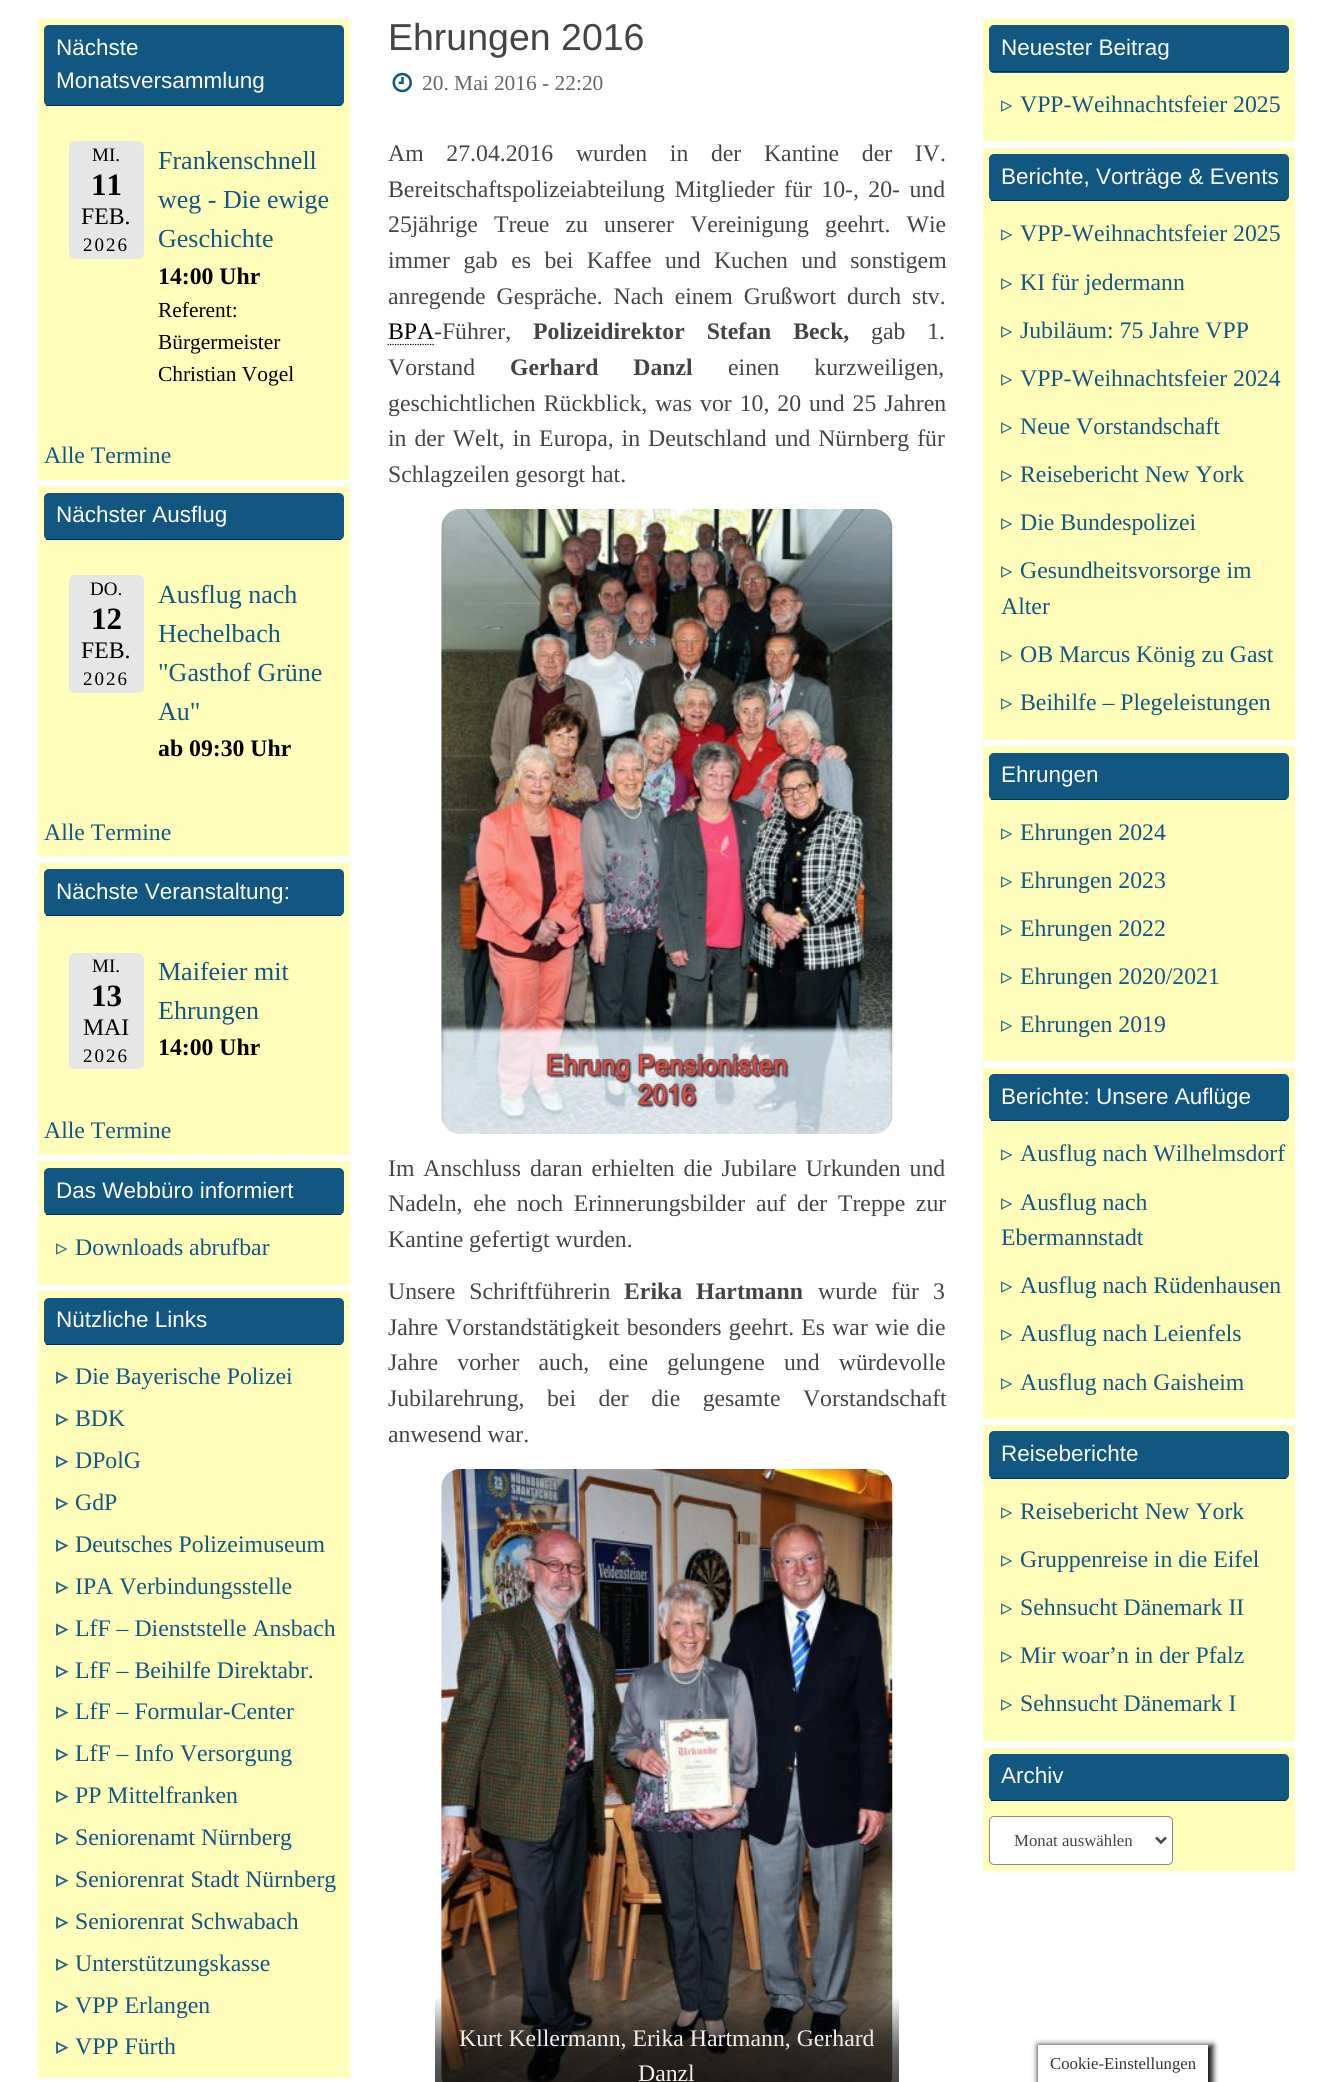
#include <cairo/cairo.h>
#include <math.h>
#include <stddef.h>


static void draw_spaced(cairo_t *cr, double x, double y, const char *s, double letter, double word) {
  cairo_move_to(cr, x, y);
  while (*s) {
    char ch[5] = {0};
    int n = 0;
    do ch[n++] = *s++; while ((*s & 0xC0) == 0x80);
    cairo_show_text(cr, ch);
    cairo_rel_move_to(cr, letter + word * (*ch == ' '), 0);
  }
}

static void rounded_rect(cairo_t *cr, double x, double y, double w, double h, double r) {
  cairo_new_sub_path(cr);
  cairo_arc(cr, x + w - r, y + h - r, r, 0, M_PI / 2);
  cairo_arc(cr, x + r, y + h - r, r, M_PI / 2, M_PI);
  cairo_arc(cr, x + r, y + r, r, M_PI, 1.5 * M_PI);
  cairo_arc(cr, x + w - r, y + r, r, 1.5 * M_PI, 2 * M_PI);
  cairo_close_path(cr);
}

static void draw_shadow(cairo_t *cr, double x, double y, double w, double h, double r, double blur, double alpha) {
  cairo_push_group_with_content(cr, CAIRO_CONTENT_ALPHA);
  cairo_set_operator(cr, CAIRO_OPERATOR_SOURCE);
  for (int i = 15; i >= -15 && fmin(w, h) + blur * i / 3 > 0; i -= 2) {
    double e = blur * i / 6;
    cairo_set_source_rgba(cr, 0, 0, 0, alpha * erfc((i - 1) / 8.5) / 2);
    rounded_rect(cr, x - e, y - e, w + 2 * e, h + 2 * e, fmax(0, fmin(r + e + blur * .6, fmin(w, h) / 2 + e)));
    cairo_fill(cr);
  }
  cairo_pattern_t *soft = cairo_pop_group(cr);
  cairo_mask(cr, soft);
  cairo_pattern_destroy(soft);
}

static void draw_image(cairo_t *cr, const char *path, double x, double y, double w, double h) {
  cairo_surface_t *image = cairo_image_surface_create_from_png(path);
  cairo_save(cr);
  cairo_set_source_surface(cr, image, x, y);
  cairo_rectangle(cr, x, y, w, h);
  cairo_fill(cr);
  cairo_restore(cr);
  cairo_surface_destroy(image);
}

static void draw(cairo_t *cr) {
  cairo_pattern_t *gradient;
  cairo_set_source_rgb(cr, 1, 1, 1);
  cairo_paint(cr);
  cairo_set_source_rgb(cr, 1, 1, 187 / 255.0);
  cairo_rectangle(cr, 38, 19, 312, 461);
  cairo_fill(cr);
  cairo_set_source_rgb(cr, 18 / 255.0, 86 / 255.0, 130 / 255.0);
  rounded_rect(cr, 44, 25, 300, 81, 5);
  cairo_fill(cr);
  cairo_set_source_rgb(cr, 0, 46 / 255.0, 90 / 255.0);
  cairo_rectangle(cr, 46, 105, 295, 1);
  cairo_fill(cr);
  cairo_set_source_rgb(cr, 230 / 255.0, 230 / 255.0, 230 / 255.0);
  rounded_rect(cr, 69, 141, 75, 118, 6);
  cairo_fill(cr);
  cairo_set_source_rgb(cr, 1, 1, 187 / 255.0);
  cairo_rectangle(cr, 38, 486, 312, 370);
  cairo_fill(cr);
  cairo_set_source_rgb(cr, 18 / 255.0, 86 / 255.0, 130 / 255.0);
  rounded_rect(cr, 44, 493, 300, 47, 5);
  cairo_fill(cr);
  cairo_set_source_rgb(cr, 0, 46 / 255.0, 90 / 255.0);
  cairo_rectangle(cr, 46, 539, 295, 1);
  cairo_fill(cr);
  cairo_set_source_rgb(cr, 230 / 255.0, 230 / 255.0, 230 / 255.0);
  rounded_rect(cr, 69, 575, 75, 118, 6);
  cairo_fill(cr);
  cairo_set_source_rgb(cr, 1, 1, 187 / 255.0);
  cairo_rectangle(cr, 38, 863, 312, 292);
  cairo_fill(cr);
  cairo_set_source_rgb(cr, 18 / 255.0, 86 / 255.0, 130 / 255.0);
  rounded_rect(cr, 44, 869, 300, 47, 5);
  cairo_fill(cr);
  cairo_set_source_rgb(cr, 0, 46 / 255.0, 90 / 255.0);
  cairo_rectangle(cr, 46, 915, 295, 1);
  cairo_fill(cr);
  cairo_set_source_rgb(cr, 230 / 255.0, 230 / 255.0, 230 / 255.0);
  rounded_rect(cr, 69, 953, 75, 116, 6);
  cairo_fill(cr);
  cairo_set_source_rgb(cr, 1, 1, 187 / 255.0);
  cairo_rectangle(cr, 38, 1161, 312, 124);
  cairo_fill(cr);
  cairo_set_source_rgb(cr, 18 / 255.0, 86 / 255.0, 130 / 255.0);
  rounded_rect(cr, 44, 1168, 300, 47, 5);
  cairo_fill(cr);
  cairo_set_source_rgb(cr, 0, 46 / 255.0, 90 / 255.0);
  cairo_rectangle(cr, 46, 1214, 295, 1);
  cairo_fill(cr);
  cairo_set_source_rgb(cr, 1, 1, 187 / 255.0);
  cairo_rectangle(cr, 38, 1291, 312, 787);
  cairo_fill(cr);
  cairo_set_source_rgb(cr, 18 / 255.0, 86 / 255.0, 130 / 255.0);
  rounded_rect(cr, 44, 1298, 300, 47, 5);
  cairo_fill(cr);
  cairo_set_source_rgb(cr, 0, 46 / 255.0, 90 / 255.0);
  cairo_rectangle(cr, 46, 1344, 295, 1);
  cairo_fill(cr);
  draw_image(cr, "images/1.png", 392, 72, 20, 21);
  cairo_new_path(cr);
  cairo_move_to(cr, 387.5, 344.5);
  cairo_line_to(cr, 434, 344.5);
  cairo_set_source_rgb(cr, 0, 0, 0);
  cairo_set_line_width(cr, 1.2);
  cairo_set_dash(cr, (double[]){1.25, 1.25}, 2, 0);
  cairo_stroke(cr);
  draw_image(cr, "images/2.png", 441, 509, 452, 625);
  draw_image(cr, "images/3.png", 441, 1469, 452, 613);
  gradient = cairo_pattern_create_linear(667, 1996, 667, 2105);
  cairo_pattern_add_color_stop_rgba(gradient, 0, 0, 0, 0, 0);
  cairo_pattern_add_color_stop_rgba(gradient, 0.5, 0, 0, 0, 0.6);
  cairo_pattern_add_color_stop_rgba(gradient, 1, 0, 0, 0, 0.8);
  cairo_set_source(cr, gradient);
  cairo_pattern_destroy(gradient);
  cairo_rectangle(cr, 435, 1998, 464, 84);
  cairo_fill(cr);
  cairo_set_source_rgb(cr, 1, 1, 187 / 255.0);
  cairo_rectangle(cr, 983, 19, 312, 122);
  cairo_fill(cr);
  cairo_set_source_rgb(cr, 18 / 255.0, 86 / 255.0, 130 / 255.0);
  rounded_rect(cr, 989, 25, 300, 48, 5);
  cairo_fill(cr);
  cairo_set_source_rgb(cr, 0, 46 / 255.0, 90 / 255.0);
  cairo_rectangle(cr, 991, 71, 295, 1);
  cairo_fill(cr);
  cairo_set_source_rgb(cr, 1, 1, 187 / 255.0);
  cairo_rectangle(cr, 983, 148, 312, 592);
  cairo_fill(cr);
  cairo_set_source_rgb(cr, 18 / 255.0, 86 / 255.0, 130 / 255.0);
  rounded_rect(cr, 989, 154, 300, 47, 5);
  cairo_fill(cr);
  cairo_set_source_rgb(cr, 0, 46 / 255.0, 90 / 255.0);
  cairo_rectangle(cr, 991, 200, 295, 1);
  cairo_fill(cr);
  cairo_set_source_rgb(cr, 1, 1, 187 / 255.0);
  cairo_rectangle(cr, 983, 746, 312, 315);
  cairo_fill(cr);
  cairo_set_source_rgb(cr, 18 / 255.0, 86 / 255.0, 130 / 255.0);
  rounded_rect(cr, 989, 753, 300, 47, 5);
  cairo_fill(cr);
  cairo_set_source_rgb(cr, 0, 46 / 255.0, 90 / 255.0);
  cairo_rectangle(cr, 991, 799, 295, 1);
  cairo_fill(cr);
  cairo_set_source_rgb(cr, 1, 1, 187 / 255.0);
  cairo_rectangle(cr, 983, 1068, 312, 351);
  cairo_fill(cr);
  cairo_set_source_rgb(cr, 18 / 255.0, 86 / 255.0, 130 / 255.0);
  rounded_rect(cr, 989, 1074, 300, 47, 5);
  cairo_fill(cr);
  cairo_set_source_rgb(cr, 0, 46 / 255.0, 90 / 255.0);
  cairo_rectangle(cr, 991, 1120, 295, 1);
  cairo_fill(cr);
  cairo_set_source_rgb(cr, 1, 1, 187 / 255.0);
  cairo_rectangle(cr, 983, 1425, 312, 316);
  cairo_fill(cr);
  cairo_set_source_rgb(cr, 18 / 255.0, 86 / 255.0, 130 / 255.0);
  rounded_rect(cr, 989, 1431, 300, 48, 5);
  cairo_fill(cr);
  cairo_set_source_rgb(cr, 0, 46 / 255.0, 90 / 255.0);
  cairo_rectangle(cr, 991, 1478, 295, 1);
  cairo_fill(cr);
  cairo_set_source_rgb(cr, 1, 1, 187 / 255.0);
  cairo_rectangle(cr, 983, 1748, 312, 123);
  cairo_fill(cr);
  cairo_set_source_rgb(cr, 18 / 255.0, 86 / 255.0, 130 / 255.0);
  rounded_rect(cr, 989, 1754, 300, 47, 5);
  cairo_fill(cr);
  cairo_set_source_rgb(cr, 0, 46 / 255.0, 90 / 255.0);
  cairo_rectangle(cr, 991, 1800, 295, 1);
  cairo_fill(cr);
  cairo_set_source_rgb(cr, 1, 1, 1);
  rounded_rect(cr, 989.5, 1816.5, 183, 48, 4.5);
  cairo_fill_preserve(cr);
  cairo_set_source_rgb(cr, 136 / 255.0, 136 / 255.0, 136 / 255.0);
  cairo_set_line_width(cr, 1);
  cairo_set_dash(cr, NULL, 0, 0);
  cairo_stroke(cr);
  cairo_new_path(cr);
  cairo_move_to(cr, 1156, 1837.5);
  cairo_line_to(cr, 1161, 1842.5);
  cairo_line_to(cr, 1166, 1837.5);
  cairo_set_source_rgb(cr, 68 / 255.0, 68 / 255.0, 68 / 255.0);
  cairo_set_line_width(cr, 2.5);
  cairo_stroke(cr);
  cairo_set_source_rgb(cr, 22 / 255.0, 22 / 255.0, 22 / 255.0);
  draw_shadow(cr, 1038, 2045, 175, 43, 0, 3, 1);
  cairo_set_source_rgb(cr, 1, 1, 1);
  cairo_rectangle(cr, 1038, 2045, 170, 37);
  cairo_fill(cr);
  cairo_select_font_face(cr, "Liberation Sans", CAIRO_FONT_SLANT_NORMAL, CAIRO_FONT_WEIGHT_NORMAL);
  cairo_set_font_size(cr, 22.5);
  cairo_move_to(cr, 56, 55);
  cairo_show_text(cr, "Nächste");
  cairo_move_to(cr, 56, 88);
  cairo_show_text(cr, "Monatsversammlung");
  cairo_select_font_face(cr, "Liberation Serif", CAIRO_FONT_SLANT_NORMAL, CAIRO_FONT_WEIGHT_NORMAL);
  cairo_set_font_size(cr, 19);
  cairo_set_source_rgb(cr, 0, 0, 0);
  cairo_move_to(cr, 92, 161);
  cairo_show_text(cr, "MI.");
  cairo_select_font_face(cr, "Liberation Serif", CAIRO_FONT_SLANT_NORMAL, CAIRO_FONT_WEIGHT_BOLD);
  cairo_set_font_size(cr, 31);
  cairo_move_to(cr, 91, 195);
  cairo_show_text(cr, "11");
  cairo_select_font_face(cr, "Liberation Serif", CAIRO_FONT_SLANT_NORMAL, CAIRO_FONT_WEIGHT_NORMAL);
  cairo_set_font_size(cr, 23.75);
  cairo_move_to(cr, 81, 224);
  cairo_show_text(cr, "FEB.");
  cairo_set_font_size(cr, 19);
  draw_spaced(cr, 83, 251, "2026", 2, 0);
  cairo_set_font_size(cr, 26);
  cairo_set_source_rgb(cr, 18 / 255.0, 86 / 255.0, 130 / 255.0);
  cairo_move_to(cr, 158, 169);
  cairo_show_text(cr, "Frankenschnell");
  cairo_move_to(cr, 158, 208);
  cairo_show_text(cr, "weg - Die ewige");
  cairo_move_to(cr, 158, 247);
  cairo_show_text(cr, "Geschichte");
  cairo_select_font_face(cr, "Liberation Serif", CAIRO_FONT_SLANT_NORMAL, CAIRO_FONT_WEIGHT_BOLD);
  cairo_set_font_size(cr, 23.75);
  cairo_set_source_rgb(cr, 0, 0, 0);
  cairo_move_to(cr, 158, 284);
  cairo_show_text(cr, "14:00 Uhr");
  cairo_select_font_face(cr, "Liberation Serif", CAIRO_FONT_SLANT_NORMAL, CAIRO_FONT_WEIGHT_NORMAL);
  cairo_set_font_size(cr, 21.4);
  cairo_move_to(cr, 158, 317);
  cairo_show_text(cr, "Referent:");
  cairo_move_to(cr, 158, 349);
  cairo_show_text(cr, "Bürgermeister");
  cairo_move_to(cr, 158, 381);
  cairo_show_text(cr, "Christian Vogel");
  cairo_set_font_size(cr, 23.75);
  cairo_set_source_rgb(cr, 18 / 255.0, 86 / 255.0, 130 / 255.0);
  cairo_move_to(cr, 44, 463);
  cairo_show_text(cr, "Alle Termine");
  cairo_select_font_face(cr, "Liberation Sans", CAIRO_FONT_SLANT_NORMAL, CAIRO_FONT_WEIGHT_NORMAL);
  cairo_set_font_size(cr, 22.5);
  cairo_set_source_rgb(cr, 1, 1, 1);
  cairo_move_to(cr, 56, 522);
  cairo_show_text(cr, "Nächster Ausflug");
  cairo_select_font_face(cr, "Liberation Serif", CAIRO_FONT_SLANT_NORMAL, CAIRO_FONT_WEIGHT_NORMAL);
  cairo_set_font_size(cr, 19);
  cairo_set_source_rgb(cr, 0, 0, 0);
  cairo_move_to(cr, 90, 595);
  cairo_show_text(cr, "DO.");
  cairo_select_font_face(cr, "Liberation Serif", CAIRO_FONT_SLANT_NORMAL, CAIRO_FONT_WEIGHT_BOLD);
  cairo_set_font_size(cr, 31);
  cairo_move_to(cr, 91, 629);
  cairo_show_text(cr, "12");
  cairo_select_font_face(cr, "Liberation Serif", CAIRO_FONT_SLANT_NORMAL, CAIRO_FONT_WEIGHT_NORMAL);
  cairo_set_font_size(cr, 23.75);
  cairo_move_to(cr, 81, 658);
  cairo_show_text(cr, "FEB.");
  cairo_set_font_size(cr, 19);
  draw_spaced(cr, 83, 685, "2026", 2, 0);
  cairo_set_font_size(cr, 26);
  cairo_set_source_rgb(cr, 18 / 255.0, 86 / 255.0, 130 / 255.0);
  cairo_move_to(cr, 158, 603);
  cairo_show_text(cr, "Ausflug nach");
  cairo_move_to(cr, 158, 642);
  cairo_show_text(cr, "Hechelbach");
  cairo_move_to(cr, 158, 681);
  cairo_show_text(cr, "\"Gasthof Grüne");
  cairo_move_to(cr, 158, 720);
  cairo_show_text(cr, "Au\"");
  cairo_select_font_face(cr, "Liberation Serif", CAIRO_FONT_SLANT_NORMAL, CAIRO_FONT_WEIGHT_BOLD);
  cairo_set_font_size(cr, 23.75);
  cairo_set_source_rgb(cr, 0, 0, 0);
  cairo_move_to(cr, 158, 756);
  cairo_show_text(cr, "ab 09:30 Uhr");
  cairo_select_font_face(cr, "Liberation Serif", CAIRO_FONT_SLANT_NORMAL, CAIRO_FONT_WEIGHT_NORMAL);
  cairo_set_source_rgb(cr, 18 / 255.0, 86 / 255.0, 130 / 255.0);
  cairo_move_to(cr, 44, 840);
  cairo_show_text(cr, "Alle Termine");
  cairo_select_font_face(cr, "Liberation Sans", CAIRO_FONT_SLANT_NORMAL, CAIRO_FONT_WEIGHT_NORMAL);
  cairo_set_font_size(cr, 22.5);
  cairo_set_source_rgb(cr, 1, 1, 1);
  cairo_move_to(cr, 56, 899);
  cairo_show_text(cr, "Nächste Veranstaltung:");
  cairo_select_font_face(cr, "Liberation Serif", CAIRO_FONT_SLANT_NORMAL, CAIRO_FONT_WEIGHT_NORMAL);
  cairo_set_font_size(cr, 19);
  cairo_set_source_rgb(cr, 0, 0, 0);
  cairo_move_to(cr, 92, 972);
  cairo_show_text(cr, "MI.");
  cairo_select_font_face(cr, "Liberation Serif", CAIRO_FONT_SLANT_NORMAL, CAIRO_FONT_WEIGHT_BOLD);
  cairo_set_font_size(cr, 31);
  cairo_move_to(cr, 91, 1006);
  cairo_show_text(cr, "13");
  cairo_select_font_face(cr, "Liberation Serif", CAIRO_FONT_SLANT_NORMAL, CAIRO_FONT_WEIGHT_NORMAL);
  cairo_set_font_size(cr, 23.75);
  cairo_move_to(cr, 83, 1035);
  cairo_show_text(cr, "MAI");
  cairo_set_font_size(cr, 19);
  draw_spaced(cr, 83, 1062, "2026", 2, 0);
  cairo_set_font_size(cr, 26);
  cairo_set_source_rgb(cr, 18 / 255.0, 86 / 255.0, 130 / 255.0);
  cairo_move_to(cr, 158, 980);
  cairo_show_text(cr, "Maifeier mit");
  cairo_move_to(cr, 158, 1019);
  cairo_show_text(cr, "Ehrungen");
  cairo_select_font_face(cr, "Liberation Serif", CAIRO_FONT_SLANT_NORMAL, CAIRO_FONT_WEIGHT_BOLD);
  cairo_set_font_size(cr, 23.75);
  cairo_set_source_rgb(cr, 0, 0, 0);
  cairo_move_to(cr, 158, 1055);
  cairo_show_text(cr, "14:00 Uhr");
  cairo_select_font_face(cr, "Liberation Serif", CAIRO_FONT_SLANT_NORMAL, CAIRO_FONT_WEIGHT_NORMAL);
  cairo_set_source_rgb(cr, 18 / 255.0, 86 / 255.0, 130 / 255.0);
  cairo_move_to(cr, 44, 1138);
  cairo_show_text(cr, "Alle Termine");
  cairo_select_font_face(cr, "Liberation Sans", CAIRO_FONT_SLANT_NORMAL, CAIRO_FONT_WEIGHT_NORMAL);
  cairo_set_font_size(cr, 22.5);
  cairo_set_source_rgb(cr, 1, 1, 1);
  cairo_move_to(cr, 56, 1198);
  cairo_show_text(cr, "Das Webbüro informiert");
  cairo_select_font_face(cr, "DejaVu Sans", CAIRO_FONT_SLANT_NORMAL, CAIRO_FONT_WEIGHT_NORMAL);
  cairo_set_font_size(cr, 23);
  cairo_set_source_rgb(cr, 42 / 255.0, 103 / 255.0, 136 / 255.0);
  cairo_move_to(cr, 56, 1255);
  cairo_show_text(cr, "▹");
  cairo_select_font_face(cr, "Liberation Serif", CAIRO_FONT_SLANT_NORMAL, CAIRO_FONT_WEIGHT_NORMAL);
  cairo_set_font_size(cr, 23.75);
  cairo_set_source_rgb(cr, 18 / 255.0, 86 / 255.0, 130 / 255.0);
  cairo_move_to(cr, 75, 1255);
  cairo_show_text(cr, "Downloads abrufbar");
  cairo_select_font_face(cr, "Liberation Sans", CAIRO_FONT_SLANT_NORMAL, CAIRO_FONT_WEIGHT_NORMAL);
  cairo_set_font_size(cr, 22.5);
  cairo_set_source_rgb(cr, 1, 1, 1);
  cairo_move_to(cr, 56, 1327);
  cairo_show_text(cr, "Nützliche Links");
  cairo_select_font_face(cr, "DejaVu Sans", CAIRO_FONT_SLANT_NORMAL, CAIRO_FONT_WEIGHT_BOLD);
  cairo_set_font_size(cr, 23);
  cairo_set_source_rgb(cr, 42 / 255.0, 103 / 255.0, 136 / 255.0);
  cairo_move_to(cr, 56, 1384);
  cairo_show_text(cr, "▹");
  cairo_select_font_face(cr, "Liberation Serif", CAIRO_FONT_SLANT_NORMAL, CAIRO_FONT_WEIGHT_NORMAL);
  cairo_set_font_size(cr, 23.75);
  cairo_set_source_rgb(cr, 18 / 255.0, 86 / 255.0, 130 / 255.0);
  cairo_move_to(cr, 75, 1384);
  cairo_show_text(cr, "Die Bayerische Polizei");
  cairo_select_font_face(cr, "DejaVu Sans", CAIRO_FONT_SLANT_NORMAL, CAIRO_FONT_WEIGHT_BOLD);
  cairo_set_font_size(cr, 23);
  cairo_set_source_rgb(cr, 42 / 255.0, 103 / 255.0, 136 / 255.0);
  cairo_move_to(cr, 56, 1426);
  cairo_show_text(cr, "▹");
  cairo_select_font_face(cr, "Liberation Serif", CAIRO_FONT_SLANT_NORMAL, CAIRO_FONT_WEIGHT_NORMAL);
  cairo_set_font_size(cr, 23.75);
  cairo_set_source_rgb(cr, 18 / 255.0, 86 / 255.0, 130 / 255.0);
  cairo_move_to(cr, 75, 1426);
  cairo_show_text(cr, "BDK");
  cairo_select_font_face(cr, "DejaVu Sans", CAIRO_FONT_SLANT_NORMAL, CAIRO_FONT_WEIGHT_BOLD);
  cairo_set_font_size(cr, 23);
  cairo_set_source_rgb(cr, 42 / 255.0, 103 / 255.0, 136 / 255.0);
  cairo_move_to(cr, 56, 1468);
  cairo_show_text(cr, "▹");
  cairo_select_font_face(cr, "Liberation Serif", CAIRO_FONT_SLANT_NORMAL, CAIRO_FONT_WEIGHT_NORMAL);
  cairo_set_font_size(cr, 23.75);
  cairo_set_source_rgb(cr, 18 / 255.0, 86 / 255.0, 130 / 255.0);
  cairo_move_to(cr, 75, 1468);
  cairo_show_text(cr, "DPolG");
  cairo_select_font_face(cr, "DejaVu Sans", CAIRO_FONT_SLANT_NORMAL, CAIRO_FONT_WEIGHT_BOLD);
  cairo_set_font_size(cr, 23);
  cairo_set_source_rgb(cr, 42 / 255.0, 103 / 255.0, 136 / 255.0);
  cairo_move_to(cr, 56, 1510);
  cairo_show_text(cr, "▹");
  cairo_select_font_face(cr, "Liberation Serif", CAIRO_FONT_SLANT_NORMAL, CAIRO_FONT_WEIGHT_NORMAL);
  cairo_set_font_size(cr, 23.75);
  cairo_set_source_rgb(cr, 18 / 255.0, 86 / 255.0, 130 / 255.0);
  cairo_move_to(cr, 75, 1510);
  cairo_show_text(cr, "GdP");
  cairo_select_font_face(cr, "DejaVu Sans", CAIRO_FONT_SLANT_NORMAL, CAIRO_FONT_WEIGHT_BOLD);
  cairo_set_font_size(cr, 23);
  cairo_set_source_rgb(cr, 42 / 255.0, 103 / 255.0, 136 / 255.0);
  cairo_move_to(cr, 56, 1552);
  cairo_show_text(cr, "▹");
  cairo_select_font_face(cr, "Liberation Serif", CAIRO_FONT_SLANT_NORMAL, CAIRO_FONT_WEIGHT_NORMAL);
  cairo_set_font_size(cr, 23.75);
  cairo_set_source_rgb(cr, 18 / 255.0, 86 / 255.0, 130 / 255.0);
  cairo_move_to(cr, 75, 1552);
  cairo_show_text(cr, "Deutsches Polizeimuseum");
  cairo_select_font_face(cr, "DejaVu Sans", CAIRO_FONT_SLANT_NORMAL, CAIRO_FONT_WEIGHT_BOLD);
  cairo_set_font_size(cr, 23);
  cairo_set_source_rgb(cr, 42 / 255.0, 103 / 255.0, 136 / 255.0);
  cairo_move_to(cr, 56, 1594);
  cairo_show_text(cr, "▹");
  cairo_select_font_face(cr, "Liberation Serif", CAIRO_FONT_SLANT_NORMAL, CAIRO_FONT_WEIGHT_NORMAL);
  cairo_set_font_size(cr, 23.75);
  cairo_set_source_rgb(cr, 18 / 255.0, 86 / 255.0, 130 / 255.0);
  cairo_move_to(cr, 75, 1594);
  cairo_show_text(cr, "IPA Verbindungsstelle");
  cairo_select_font_face(cr, "DejaVu Sans", CAIRO_FONT_SLANT_NORMAL, CAIRO_FONT_WEIGHT_BOLD);
  cairo_set_font_size(cr, 23);
  cairo_set_source_rgb(cr, 42 / 255.0, 103 / 255.0, 136 / 255.0);
  cairo_move_to(cr, 56, 1636);
  cairo_show_text(cr, "▹");
  cairo_select_font_face(cr, "Liberation Serif", CAIRO_FONT_SLANT_NORMAL, CAIRO_FONT_WEIGHT_NORMAL);
  cairo_set_font_size(cr, 23.75);
  cairo_set_source_rgb(cr, 18 / 255.0, 86 / 255.0, 130 / 255.0);
  cairo_move_to(cr, 75, 1636);
  cairo_show_text(cr, "LfF – Dienststelle Ansbach");
  cairo_select_font_face(cr, "DejaVu Sans", CAIRO_FONT_SLANT_NORMAL, CAIRO_FONT_WEIGHT_BOLD);
  cairo_set_font_size(cr, 23);
  cairo_set_source_rgb(cr, 42 / 255.0, 103 / 255.0, 136 / 255.0);
  cairo_move_to(cr, 56, 1678);
  cairo_show_text(cr, "▹");
  cairo_select_font_face(cr, "Liberation Serif", CAIRO_FONT_SLANT_NORMAL, CAIRO_FONT_WEIGHT_NORMAL);
  cairo_set_font_size(cr, 23.75);
  cairo_set_source_rgb(cr, 18 / 255.0, 86 / 255.0, 130 / 255.0);
  cairo_move_to(cr, 75, 1678);
  cairo_show_text(cr, "LfF – Beihilfe Direktabr.");
  cairo_select_font_face(cr, "DejaVu Sans", CAIRO_FONT_SLANT_NORMAL, CAIRO_FONT_WEIGHT_BOLD);
  cairo_set_font_size(cr, 23);
  cairo_set_source_rgb(cr, 42 / 255.0, 103 / 255.0, 136 / 255.0);
  cairo_move_to(cr, 56, 1719);
  cairo_show_text(cr, "▹");
  cairo_select_font_face(cr, "Liberation Serif", CAIRO_FONT_SLANT_NORMAL, CAIRO_FONT_WEIGHT_NORMAL);
  cairo_set_font_size(cr, 23.75);
  cairo_set_source_rgb(cr, 18 / 255.0, 86 / 255.0, 130 / 255.0);
  cairo_move_to(cr, 75, 1719);
  cairo_show_text(cr, "LfF – Formular-Center");
  cairo_select_font_face(cr, "DejaVu Sans", CAIRO_FONT_SLANT_NORMAL, CAIRO_FONT_WEIGHT_BOLD);
  cairo_set_font_size(cr, 23);
  cairo_set_source_rgb(cr, 42 / 255.0, 103 / 255.0, 136 / 255.0);
  cairo_move_to(cr, 56, 1761);
  cairo_show_text(cr, "▹");
  cairo_select_font_face(cr, "Liberation Serif", CAIRO_FONT_SLANT_NORMAL, CAIRO_FONT_WEIGHT_NORMAL);
  cairo_set_font_size(cr, 23.75);
  cairo_set_source_rgb(cr, 18 / 255.0, 86 / 255.0, 130 / 255.0);
  cairo_move_to(cr, 75, 1761);
  cairo_show_text(cr, "LfF – Info Versorgung");
  cairo_select_font_face(cr, "DejaVu Sans", CAIRO_FONT_SLANT_NORMAL, CAIRO_FONT_WEIGHT_BOLD);
  cairo_set_font_size(cr, 23);
  cairo_set_source_rgb(cr, 42 / 255.0, 103 / 255.0, 136 / 255.0);
  cairo_move_to(cr, 56, 1803);
  cairo_show_text(cr, "▹");
  cairo_select_font_face(cr, "Liberation Serif", CAIRO_FONT_SLANT_NORMAL, CAIRO_FONT_WEIGHT_NORMAL);
  cairo_set_font_size(cr, 23.75);
  cairo_set_source_rgb(cr, 18 / 255.0, 86 / 255.0, 130 / 255.0);
  cairo_move_to(cr, 75, 1803);
  cairo_show_text(cr, "PP Mittelfranken");
  cairo_select_font_face(cr, "DejaVu Sans", CAIRO_FONT_SLANT_NORMAL, CAIRO_FONT_WEIGHT_BOLD);
  cairo_set_font_size(cr, 23);
  cairo_set_source_rgb(cr, 42 / 255.0, 103 / 255.0, 136 / 255.0);
  cairo_move_to(cr, 56, 1845);
  cairo_show_text(cr, "▹");
  cairo_select_font_face(cr, "Liberation Serif", CAIRO_FONT_SLANT_NORMAL, CAIRO_FONT_WEIGHT_NORMAL);
  cairo_set_font_size(cr, 23.75);
  cairo_set_source_rgb(cr, 18 / 255.0, 86 / 255.0, 130 / 255.0);
  cairo_move_to(cr, 75, 1845);
  cairo_show_text(cr, "Seniorenamt Nürnberg");
  cairo_select_font_face(cr, "DejaVu Sans", CAIRO_FONT_SLANT_NORMAL, CAIRO_FONT_WEIGHT_BOLD);
  cairo_set_font_size(cr, 23);
  cairo_set_source_rgb(cr, 42 / 255.0, 103 / 255.0, 136 / 255.0);
  cairo_move_to(cr, 56, 1887);
  cairo_show_text(cr, "▹");
  cairo_select_font_face(cr, "Liberation Serif", CAIRO_FONT_SLANT_NORMAL, CAIRO_FONT_WEIGHT_NORMAL);
  cairo_set_font_size(cr, 23.75);
  cairo_set_source_rgb(cr, 18 / 255.0, 86 / 255.0, 130 / 255.0);
  cairo_move_to(cr, 75, 1887);
  cairo_show_text(cr, "Seniorenrat Stadt Nürnberg");
  cairo_select_font_face(cr, "DejaVu Sans", CAIRO_FONT_SLANT_NORMAL, CAIRO_FONT_WEIGHT_BOLD);
  cairo_set_font_size(cr, 23);
  cairo_set_source_rgb(cr, 42 / 255.0, 103 / 255.0, 136 / 255.0);
  cairo_move_to(cr, 56, 1929);
  cairo_show_text(cr, "▹");
  cairo_select_font_face(cr, "Liberation Serif", CAIRO_FONT_SLANT_NORMAL, CAIRO_FONT_WEIGHT_NORMAL);
  cairo_set_font_size(cr, 23.75);
  cairo_set_source_rgb(cr, 18 / 255.0, 86 / 255.0, 130 / 255.0);
  cairo_move_to(cr, 75, 1929);
  cairo_show_text(cr, "Seniorenrat Schwabach");
  cairo_select_font_face(cr, "DejaVu Sans", CAIRO_FONT_SLANT_NORMAL, CAIRO_FONT_WEIGHT_BOLD);
  cairo_set_font_size(cr, 23);
  cairo_set_source_rgb(cr, 42 / 255.0, 103 / 255.0, 136 / 255.0);
  cairo_move_to(cr, 56, 1971);
  cairo_show_text(cr, "▹");
  cairo_select_font_face(cr, "Liberation Serif", CAIRO_FONT_SLANT_NORMAL, CAIRO_FONT_WEIGHT_NORMAL);
  cairo_set_font_size(cr, 23.75);
  cairo_set_source_rgb(cr, 18 / 255.0, 86 / 255.0, 130 / 255.0);
  cairo_move_to(cr, 75, 1971);
  cairo_show_text(cr, "Unterstützungskasse");
  cairo_select_font_face(cr, "DejaVu Sans", CAIRO_FONT_SLANT_NORMAL, CAIRO_FONT_WEIGHT_BOLD);
  cairo_set_font_size(cr, 23);
  cairo_set_source_rgb(cr, 42 / 255.0, 103 / 255.0, 136 / 255.0);
  cairo_move_to(cr, 56, 2013);
  cairo_show_text(cr, "▹");
  cairo_select_font_face(cr, "Liberation Serif", CAIRO_FONT_SLANT_NORMAL, CAIRO_FONT_WEIGHT_NORMAL);
  cairo_set_font_size(cr, 23.75);
  cairo_set_source_rgb(cr, 18 / 255.0, 86 / 255.0, 130 / 255.0);
  cairo_move_to(cr, 75, 2013);
  cairo_show_text(cr, "VPP Erlangen");
  cairo_select_font_face(cr, "DejaVu Sans", CAIRO_FONT_SLANT_NORMAL, CAIRO_FONT_WEIGHT_BOLD);
  cairo_set_font_size(cr, 23);
  cairo_set_source_rgb(cr, 42 / 255.0, 103 / 255.0, 136 / 255.0);
  cairo_move_to(cr, 56, 2054);
  cairo_show_text(cr, "▹");
  cairo_select_font_face(cr, "Liberation Serif", CAIRO_FONT_SLANT_NORMAL, CAIRO_FONT_WEIGHT_NORMAL);
  cairo_set_font_size(cr, 23.75);
  cairo_set_source_rgb(cr, 18 / 255.0, 86 / 255.0, 130 / 255.0);
  cairo_move_to(cr, 75, 2054);
  cairo_show_text(cr, "VPP Fürth");
  cairo_select_font_face(cr, "Liberation Sans", CAIRO_FONT_SLANT_NORMAL, CAIRO_FONT_WEIGHT_NORMAL);
  cairo_set_font_size(cr, 37.5);
  cairo_set_source_rgb(cr, 68 / 255.0, 68 / 255.0, 68 / 255.0);
  cairo_move_to(cr, 388, 50);
  cairo_show_text(cr, "Ehrungen 2016");
  cairo_select_font_face(cr, "Liberation Serif", CAIRO_FONT_SLANT_NORMAL, CAIRO_FONT_WEIGHT_NORMAL);
  cairo_set_font_size(cr, 21.4);
  cairo_set_source_rgb(cr, 102 / 255.0, 102 / 255.0, 102 / 255.0);
  cairo_move_to(cr, 422, 90);
  cairo_show_text(cr, "20. Mai 2016 - 22:20");
  cairo_set_font_size(cr, 23.75);
  cairo_set_source_rgb(cr, 68 / 255.0, 68 / 255.0, 68 / 255.0);
  draw_spaced(cr, 388, 161, "Am 27.04.2016 wurden in der Kantine der IV.", 0, 16.75);
  draw_spaced(cr, 388, 197, "Bereitschaftspolizeiabteilung Mitglieder für 10-, 20- und", 0, 3.5);
  draw_spaced(cr, 388, 232, "25jährige Treue zu unserer Vereinigung geehrt. Wie", 0, 10.25);
  draw_spaced(cr, 388, 268, "immer gab es bei Kaffee und Kuchen und sonstigem", 0, 7.5);
  draw_spaced(cr, 388, 304, "anregende Gespräche. Nach einem Grußwort durch stv.", 0, 5);
  cairo_set_source_rgb(cr, 0, 0, 0);
  cairo_move_to(cr, 388, 339);
  cairo_show_text(cr, "BPA");
  cairo_set_source_rgb(cr, 68 / 255.0, 68 / 255.0, 68 / 255.0);
  cairo_move_to(cr, 434, 339);
  cairo_show_text(cr, "-Führer,");
  cairo_select_font_face(cr, "Liberation Serif", CAIRO_FONT_SLANT_NORMAL, CAIRO_FONT_WEIGHT_BOLD);
  draw_spaced(cr, 533, 339, "Polizeidirektor Stefan Beck,", 0, 16);
  cairo_select_font_face(cr, "Liberation Serif", CAIRO_FONT_SLANT_NORMAL, CAIRO_FONT_WEIGHT_NORMAL);
  draw_spaced(cr, 871, 339, "gab 1.", 0, 16);
  cairo_move_to(cr, 388, 375);
  cairo_show_text(cr, "Vorstand");
  cairo_select_font_face(cr, "Liberation Serif", CAIRO_FONT_SLANT_NORMAL, CAIRO_FONT_WEIGHT_BOLD);
  draw_spaced(cr, 510, 375, "Gerhard Danzl", 0, 29);
  cairo_select_font_face(cr, "Liberation Serif", CAIRO_FONT_SLANT_NORMAL, CAIRO_FONT_WEIGHT_NORMAL);
  draw_spaced(cr, 728, 375, "einen kurzweiligen,", 0, 29);
  draw_spaced(cr, 388, 411, "geschichtlichen Rückblick, was vor 10, 20 und 25 Jahren", 0, 2);
  draw_spaced(cr, 388, 446, "in der Welt, in Europa, in Deutschland und Nürnberg für", 0, 2);
  cairo_move_to(cr, 388, 482);
  cairo_show_text(cr, "Schlagzeilen gesorgt hat.");
  draw_spaced(cr, 388, 1176, "Im Anschluss daran erhielten die Jubilare Urkunden und", 0, 3);
  draw_spaced(cr, 388, 1211, "Nadeln, ehe noch Erinnerungsbilder auf der Treppe zur", 0, 4.75);
  cairo_move_to(cr, 388, 1247);
  cairo_show_text(cr, "Kantine gefertigt wurden.");
  draw_spaced(cr, 388, 1299, "Unsere Schriftführerin", 0, 8);
  cairo_select_font_face(cr, "Liberation Serif", CAIRO_FONT_SLANT_NORMAL, CAIRO_FONT_WEIGHT_BOLD);
  draw_spaced(cr, 624, 1299, "Erika Hartmann", 0, 8);
  cairo_select_font_face(cr, "Liberation Serif", CAIRO_FONT_SLANT_NORMAL, CAIRO_FONT_WEIGHT_NORMAL);
  draw_spaced(cr, 818, 1299, "wurde für 3", 0, 8);
  draw_spaced(cr, 388, 1335, "Jahre Vorstandstätigkeit besonders geehrt. Es war wie die", 0, 1.25);
  draw_spaced(cr, 388, 1370, "Jahre vorher auch, eine gelungene und würdevolle", 0, 13.25);
  draw_spaced(cr, 388, 1406, "Jubilarehrung, bei der die gesamte Vorstandschaft", 0, 16.5);
  cairo_move_to(cr, 388, 1442);
  cairo_show_text(cr, "anwesend war.");
  cairo_set_source_rgb(cr, 238 / 255.0, 238 / 255.0, 238 / 255.0);
  cairo_move_to(cr, 459, 2046);
  cairo_show_text(cr, "Kurt Kellermann, Erika Hartmann, Gerhard");
  cairo_move_to(cr, 638, 2081);
  cairo_show_text(cr, "Danzl");
  cairo_select_font_face(cr, "Liberation Sans", CAIRO_FONT_SLANT_NORMAL, CAIRO_FONT_WEIGHT_NORMAL);
  cairo_set_font_size(cr, 22.5);
  cairo_set_source_rgb(cr, 1, 1, 1);
  cairo_move_to(cr, 1001, 55);
  cairo_show_text(cr, "Neuester Beitrag");
  cairo_select_font_face(cr, "DejaVu Sans", CAIRO_FONT_SLANT_NORMAL, CAIRO_FONT_WEIGHT_NORMAL);
  cairo_set_font_size(cr, 23);
  cairo_set_source_rgb(cr, 42 / 255.0, 103 / 255.0, 136 / 255.0);
  cairo_move_to(cr, 1001, 112);
  cairo_show_text(cr, "▹");
  cairo_select_font_face(cr, "Liberation Serif", CAIRO_FONT_SLANT_NORMAL, CAIRO_FONT_WEIGHT_NORMAL);
  cairo_set_font_size(cr, 23.75);
  cairo_set_source_rgb(cr, 18 / 255.0, 86 / 255.0, 130 / 255.0);
  cairo_move_to(cr, 1020, 112);
  cairo_show_text(cr, "VPP-Weihnachtsfeier 2025");
  cairo_select_font_face(cr, "Liberation Sans", CAIRO_FONT_SLANT_NORMAL, CAIRO_FONT_WEIGHT_NORMAL);
  cairo_set_font_size(cr, 22.5);
  cairo_set_source_rgb(cr, 1, 1, 1);
  cairo_move_to(cr, 1001, 184);
  cairo_show_text(cr, "Berichte, Vorträge & Events");
  cairo_select_font_face(cr, "DejaVu Sans", CAIRO_FONT_SLANT_NORMAL, CAIRO_FONT_WEIGHT_NORMAL);
  cairo_set_font_size(cr, 23);
  cairo_set_source_rgb(cr, 42 / 255.0, 103 / 255.0, 136 / 255.0);
  cairo_move_to(cr, 1001, 241);
  cairo_show_text(cr, "▹");
  cairo_select_font_face(cr, "Liberation Serif", CAIRO_FONT_SLANT_NORMAL, CAIRO_FONT_WEIGHT_NORMAL);
  cairo_set_font_size(cr, 23.75);
  cairo_set_source_rgb(cr, 18 / 255.0, 86 / 255.0, 130 / 255.0);
  cairo_move_to(cr, 1020, 241);
  cairo_show_text(cr, "VPP-Weihnachtsfeier 2025");
  cairo_select_font_face(cr, "DejaVu Sans", CAIRO_FONT_SLANT_NORMAL, CAIRO_FONT_WEIGHT_NORMAL);
  cairo_set_font_size(cr, 23);
  cairo_set_source_rgb(cr, 42 / 255.0, 103 / 255.0, 136 / 255.0);
  cairo_move_to(cr, 1001, 290);
  cairo_show_text(cr, "▹");
  cairo_select_font_face(cr, "Liberation Serif", CAIRO_FONT_SLANT_NORMAL, CAIRO_FONT_WEIGHT_NORMAL);
  cairo_set_font_size(cr, 23.75);
  cairo_set_source_rgb(cr, 18 / 255.0, 86 / 255.0, 130 / 255.0);
  cairo_move_to(cr, 1020, 290);
  cairo_show_text(cr, "KI für jedermann");
  cairo_select_font_face(cr, "DejaVu Sans", CAIRO_FONT_SLANT_NORMAL, CAIRO_FONT_WEIGHT_NORMAL);
  cairo_set_font_size(cr, 23);
  cairo_set_source_rgb(cr, 42 / 255.0, 103 / 255.0, 136 / 255.0);
  cairo_move_to(cr, 1001, 338);
  cairo_show_text(cr, "▹");
  cairo_select_font_face(cr, "Liberation Serif", CAIRO_FONT_SLANT_NORMAL, CAIRO_FONT_WEIGHT_NORMAL);
  cairo_set_font_size(cr, 23.75);
  cairo_set_source_rgb(cr, 18 / 255.0, 86 / 255.0, 130 / 255.0);
  cairo_move_to(cr, 1020, 338);
  cairo_show_text(cr, "Jubiläum: 75 Jahre VPP");
  cairo_select_font_face(cr, "DejaVu Sans", CAIRO_FONT_SLANT_NORMAL, CAIRO_FONT_WEIGHT_NORMAL);
  cairo_set_font_size(cr, 23);
  cairo_set_source_rgb(cr, 42 / 255.0, 103 / 255.0, 136 / 255.0);
  cairo_move_to(cr, 1001, 386);
  cairo_show_text(cr, "▹");
  cairo_select_font_face(cr, "Liberation Serif", CAIRO_FONT_SLANT_NORMAL, CAIRO_FONT_WEIGHT_NORMAL);
  cairo_set_font_size(cr, 23.75);
  cairo_set_source_rgb(cr, 18 / 255.0, 86 / 255.0, 130 / 255.0);
  cairo_move_to(cr, 1020, 386);
  cairo_show_text(cr, "VPP-Weihnachtsfeier 2024");
  cairo_select_font_face(cr, "DejaVu Sans", CAIRO_FONT_SLANT_NORMAL, CAIRO_FONT_WEIGHT_NORMAL);
  cairo_set_font_size(cr, 23);
  cairo_set_source_rgb(cr, 42 / 255.0, 103 / 255.0, 136 / 255.0);
  cairo_move_to(cr, 1001, 434);
  cairo_show_text(cr, "▹");
  cairo_select_font_face(cr, "Liberation Serif", CAIRO_FONT_SLANT_NORMAL, CAIRO_FONT_WEIGHT_NORMAL);
  cairo_set_font_size(cr, 23.75);
  cairo_set_source_rgb(cr, 18 / 255.0, 86 / 255.0, 130 / 255.0);
  cairo_move_to(cr, 1020, 434);
  cairo_show_text(cr, "Neue Vorstandschaft");
  cairo_select_font_face(cr, "DejaVu Sans", CAIRO_FONT_SLANT_NORMAL, CAIRO_FONT_WEIGHT_NORMAL);
  cairo_set_font_size(cr, 23);
  cairo_set_source_rgb(cr, 42 / 255.0, 103 / 255.0, 136 / 255.0);
  cairo_move_to(cr, 1001, 482);
  cairo_show_text(cr, "▹");
  cairo_select_font_face(cr, "Liberation Serif", CAIRO_FONT_SLANT_NORMAL, CAIRO_FONT_WEIGHT_NORMAL);
  cairo_set_font_size(cr, 23.75);
  cairo_set_source_rgb(cr, 18 / 255.0, 86 / 255.0, 130 / 255.0);
  cairo_move_to(cr, 1020, 482);
  cairo_show_text(cr, "Reisebericht New York");
  cairo_select_font_face(cr, "DejaVu Sans", CAIRO_FONT_SLANT_NORMAL, CAIRO_FONT_WEIGHT_NORMAL);
  cairo_set_font_size(cr, 23);
  cairo_set_source_rgb(cr, 42 / 255.0, 103 / 255.0, 136 / 255.0);
  cairo_move_to(cr, 1001, 530);
  cairo_show_text(cr, "▹");
  cairo_select_font_face(cr, "Liberation Serif", CAIRO_FONT_SLANT_NORMAL, CAIRO_FONT_WEIGHT_NORMAL);
  cairo_set_font_size(cr, 23.75);
  cairo_set_source_rgb(cr, 18 / 255.0, 86 / 255.0, 130 / 255.0);
  cairo_move_to(cr, 1020, 530);
  cairo_show_text(cr, "Die Bundespolizei");
  cairo_select_font_face(cr, "DejaVu Sans", CAIRO_FONT_SLANT_NORMAL, CAIRO_FONT_WEIGHT_NORMAL);
  cairo_set_font_size(cr, 23);
  cairo_set_source_rgb(cr, 42 / 255.0, 103 / 255.0, 136 / 255.0);
  cairo_move_to(cr, 1001, 578);
  cairo_show_text(cr, "▹");
  cairo_select_font_face(cr, "Liberation Serif", CAIRO_FONT_SLANT_NORMAL, CAIRO_FONT_WEIGHT_NORMAL);
  cairo_set_font_size(cr, 23.75);
  cairo_set_source_rgb(cr, 18 / 255.0, 86 / 255.0, 130 / 255.0);
  cairo_move_to(cr, 1020, 578);
  cairo_show_text(cr, "Gesundheitsvorsorge im");
  cairo_move_to(cr, 1001, 614);
  cairo_show_text(cr, "Alter");
  cairo_select_font_face(cr, "DejaVu Sans", CAIRO_FONT_SLANT_NORMAL, CAIRO_FONT_WEIGHT_NORMAL);
  cairo_set_font_size(cr, 23);
  cairo_set_source_rgb(cr, 42 / 255.0, 103 / 255.0, 136 / 255.0);
  cairo_move_to(cr, 1001, 662);
  cairo_show_text(cr, "▹");
  cairo_select_font_face(cr, "Liberation Serif", CAIRO_FONT_SLANT_NORMAL, CAIRO_FONT_WEIGHT_NORMAL);
  cairo_set_font_size(cr, 23.75);
  cairo_set_source_rgb(cr, 18 / 255.0, 86 / 255.0, 130 / 255.0);
  cairo_move_to(cr, 1020, 662);
  cairo_show_text(cr, "OB Marcus König zu Gast");
  cairo_select_font_face(cr, "DejaVu Sans", CAIRO_FONT_SLANT_NORMAL, CAIRO_FONT_WEIGHT_NORMAL);
  cairo_set_font_size(cr, 23);
  cairo_set_source_rgb(cr, 42 / 255.0, 103 / 255.0, 136 / 255.0);
  cairo_move_to(cr, 1001, 710);
  cairo_show_text(cr, "▹");
  cairo_select_font_face(cr, "Liberation Serif", CAIRO_FONT_SLANT_NORMAL, CAIRO_FONT_WEIGHT_NORMAL);
  cairo_set_font_size(cr, 23.75);
  cairo_set_source_rgb(cr, 18 / 255.0, 86 / 255.0, 130 / 255.0);
  cairo_move_to(cr, 1020, 710);
  cairo_show_text(cr, "Beihilfe – Plegeleistungen");
  cairo_select_font_face(cr, "Liberation Sans", CAIRO_FONT_SLANT_NORMAL, CAIRO_FONT_WEIGHT_NORMAL);
  cairo_set_font_size(cr, 22.5);
  cairo_set_source_rgb(cr, 1, 1, 1);
  cairo_move_to(cr, 1001, 782);
  cairo_show_text(cr, "Ehrungen");
  cairo_select_font_face(cr, "DejaVu Sans", CAIRO_FONT_SLANT_NORMAL, CAIRO_FONT_WEIGHT_NORMAL);
  cairo_set_font_size(cr, 23);
  cairo_set_source_rgb(cr, 42 / 255.0, 103 / 255.0, 136 / 255.0);
  cairo_move_to(cr, 1001, 840);
  cairo_show_text(cr, "▹");
  cairo_select_font_face(cr, "Liberation Serif", CAIRO_FONT_SLANT_NORMAL, CAIRO_FONT_WEIGHT_NORMAL);
  cairo_set_font_size(cr, 23.75);
  cairo_set_source_rgb(cr, 18 / 255.0, 86 / 255.0, 130 / 255.0);
  cairo_move_to(cr, 1020, 840);
  cairo_show_text(cr, "Ehrungen 2024");
  cairo_select_font_face(cr, "DejaVu Sans", CAIRO_FONT_SLANT_NORMAL, CAIRO_FONT_WEIGHT_NORMAL);
  cairo_set_font_size(cr, 23);
  cairo_set_source_rgb(cr, 42 / 255.0, 103 / 255.0, 136 / 255.0);
  cairo_move_to(cr, 1001, 888);
  cairo_show_text(cr, "▹");
  cairo_select_font_face(cr, "Liberation Serif", CAIRO_FONT_SLANT_NORMAL, CAIRO_FONT_WEIGHT_NORMAL);
  cairo_set_font_size(cr, 23.75);
  cairo_set_source_rgb(cr, 18 / 255.0, 86 / 255.0, 130 / 255.0);
  cairo_move_to(cr, 1020, 888);
  cairo_show_text(cr, "Ehrungen 2023");
  cairo_select_font_face(cr, "DejaVu Sans", CAIRO_FONT_SLANT_NORMAL, CAIRO_FONT_WEIGHT_NORMAL);
  cairo_set_font_size(cr, 23);
  cairo_set_source_rgb(cr, 42 / 255.0, 103 / 255.0, 136 / 255.0);
  cairo_move_to(cr, 1001, 936);
  cairo_show_text(cr, "▹");
  cairo_select_font_face(cr, "Liberation Serif", CAIRO_FONT_SLANT_NORMAL, CAIRO_FONT_WEIGHT_NORMAL);
  cairo_set_font_size(cr, 23.75);
  cairo_set_source_rgb(cr, 18 / 255.0, 86 / 255.0, 130 / 255.0);
  cairo_move_to(cr, 1020, 936);
  cairo_show_text(cr, "Ehrungen 2022");
  cairo_select_font_face(cr, "DejaVu Sans", CAIRO_FONT_SLANT_NORMAL, CAIRO_FONT_WEIGHT_NORMAL);
  cairo_set_font_size(cr, 23);
  cairo_set_source_rgb(cr, 42 / 255.0, 103 / 255.0, 136 / 255.0);
  cairo_move_to(cr, 1001, 984);
  cairo_show_text(cr, "▹");
  cairo_select_font_face(cr, "Liberation Serif", CAIRO_FONT_SLANT_NORMAL, CAIRO_FONT_WEIGHT_NORMAL);
  cairo_set_font_size(cr, 23.75);
  cairo_set_source_rgb(cr, 18 / 255.0, 86 / 255.0, 130 / 255.0);
  cairo_move_to(cr, 1020, 984);
  cairo_show_text(cr, "Ehrungen 2020/2021");
  cairo_select_font_face(cr, "DejaVu Sans", CAIRO_FONT_SLANT_NORMAL, CAIRO_FONT_WEIGHT_NORMAL);
  cairo_set_font_size(cr, 23);
  cairo_set_source_rgb(cr, 42 / 255.0, 103 / 255.0, 136 / 255.0);
  cairo_move_to(cr, 1001, 1032);
  cairo_show_text(cr, "▹");
  cairo_select_font_face(cr, "Liberation Serif", CAIRO_FONT_SLANT_NORMAL, CAIRO_FONT_WEIGHT_NORMAL);
  cairo_set_font_size(cr, 23.75);
  cairo_set_source_rgb(cr, 18 / 255.0, 86 / 255.0, 130 / 255.0);
  cairo_move_to(cr, 1020, 1032);
  cairo_show_text(cr, "Ehrungen 2019");
  cairo_select_font_face(cr, "Liberation Sans", CAIRO_FONT_SLANT_NORMAL, CAIRO_FONT_WEIGHT_NORMAL);
  cairo_set_font_size(cr, 22.5);
  cairo_set_source_rgb(cr, 1, 1, 1);
  cairo_move_to(cr, 1001, 1104);
  cairo_show_text(cr, "Berichte: Unsere Auflüge");
  cairo_select_font_face(cr, "DejaVu Sans", CAIRO_FONT_SLANT_NORMAL, CAIRO_FONT_WEIGHT_NORMAL);
  cairo_set_font_size(cr, 23);
  cairo_set_source_rgb(cr, 42 / 255.0, 103 / 255.0, 136 / 255.0);
  cairo_move_to(cr, 1001, 1161);
  cairo_show_text(cr, "▹");
  cairo_select_font_face(cr, "Liberation Serif", CAIRO_FONT_SLANT_NORMAL, CAIRO_FONT_WEIGHT_NORMAL);
  cairo_set_font_size(cr, 23.75);
  cairo_set_source_rgb(cr, 18 / 255.0, 86 / 255.0, 130 / 255.0);
  cairo_move_to(cr, 1020, 1161);
  cairo_show_text(cr, "Ausflug nach Wilhelmsdorf");
  cairo_select_font_face(cr, "DejaVu Sans", CAIRO_FONT_SLANT_NORMAL, CAIRO_FONT_WEIGHT_NORMAL);
  cairo_set_font_size(cr, 23);
  cairo_set_source_rgb(cr, 42 / 255.0, 103 / 255.0, 136 / 255.0);
  cairo_move_to(cr, 1001, 1210);
  cairo_show_text(cr, "▹");
  cairo_select_font_face(cr, "Liberation Serif", CAIRO_FONT_SLANT_NORMAL, CAIRO_FONT_WEIGHT_NORMAL);
  cairo_set_font_size(cr, 23.75);
  cairo_set_source_rgb(cr, 18 / 255.0, 86 / 255.0, 130 / 255.0);
  cairo_move_to(cr, 1020, 1210);
  cairo_show_text(cr, "Ausflug nach");
  cairo_move_to(cr, 1001, 1245);
  cairo_show_text(cr, "Ebermannstadt");
  cairo_select_font_face(cr, "DejaVu Sans", CAIRO_FONT_SLANT_NORMAL, CAIRO_FONT_WEIGHT_NORMAL);
  cairo_set_font_size(cr, 23);
  cairo_set_source_rgb(cr, 42 / 255.0, 103 / 255.0, 136 / 255.0);
  cairo_move_to(cr, 1001, 1293);
  cairo_show_text(cr, "▹");
  cairo_select_font_face(cr, "Liberation Serif", CAIRO_FONT_SLANT_NORMAL, CAIRO_FONT_WEIGHT_NORMAL);
  cairo_set_font_size(cr, 23.75);
  cairo_set_source_rgb(cr, 18 / 255.0, 86 / 255.0, 130 / 255.0);
  cairo_move_to(cr, 1020, 1293);
  cairo_show_text(cr, "Ausflug nach Rüdenhausen");
  cairo_select_font_face(cr, "DejaVu Sans", CAIRO_FONT_SLANT_NORMAL, CAIRO_FONT_WEIGHT_NORMAL);
  cairo_set_font_size(cr, 23);
  cairo_set_source_rgb(cr, 42 / 255.0, 103 / 255.0, 136 / 255.0);
  cairo_move_to(cr, 1001, 1341);
  cairo_show_text(cr, "▹");
  cairo_select_font_face(cr, "Liberation Serif", CAIRO_FONT_SLANT_NORMAL, CAIRO_FONT_WEIGHT_NORMAL);
  cairo_set_font_size(cr, 23.75);
  cairo_set_source_rgb(cr, 18 / 255.0, 86 / 255.0, 130 / 255.0);
  cairo_move_to(cr, 1020, 1341);
  cairo_show_text(cr, "Ausflug nach Leienfels");
  cairo_select_font_face(cr, "DejaVu Sans", CAIRO_FONT_SLANT_NORMAL, CAIRO_FONT_WEIGHT_NORMAL);
  cairo_set_font_size(cr, 23);
  cairo_set_source_rgb(cr, 42 / 255.0, 103 / 255.0, 136 / 255.0);
  cairo_move_to(cr, 1001, 1390);
  cairo_show_text(cr, "▹");
  cairo_select_font_face(cr, "Liberation Serif", CAIRO_FONT_SLANT_NORMAL, CAIRO_FONT_WEIGHT_NORMAL);
  cairo_set_font_size(cr, 23.75);
  cairo_set_source_rgb(cr, 18 / 255.0, 86 / 255.0, 130 / 255.0);
  cairo_move_to(cr, 1020, 1390);
  cairo_show_text(cr, "Ausflug nach Gaisheim");
  cairo_select_font_face(cr, "Liberation Sans", CAIRO_FONT_SLANT_NORMAL, CAIRO_FONT_WEIGHT_NORMAL);
  cairo_set_font_size(cr, 22.5);
  cairo_set_source_rgb(cr, 1, 1, 1);
  cairo_move_to(cr, 1001, 1461);
  cairo_show_text(cr, "Reiseberichte");
  cairo_select_font_face(cr, "DejaVu Sans", CAIRO_FONT_SLANT_NORMAL, CAIRO_FONT_WEIGHT_NORMAL);
  cairo_set_font_size(cr, 23);
  cairo_set_source_rgb(cr, 42 / 255.0, 103 / 255.0, 136 / 255.0);
  cairo_move_to(cr, 1001, 1519);
  cairo_show_text(cr, "▹");
  cairo_select_font_face(cr, "Liberation Serif", CAIRO_FONT_SLANT_NORMAL, CAIRO_FONT_WEIGHT_NORMAL);
  cairo_set_font_size(cr, 23.75);
  cairo_set_source_rgb(cr, 18 / 255.0, 86 / 255.0, 130 / 255.0);
  cairo_move_to(cr, 1020, 1519);
  cairo_show_text(cr, "Reisebericht New York");
  cairo_select_font_face(cr, "DejaVu Sans", CAIRO_FONT_SLANT_NORMAL, CAIRO_FONT_WEIGHT_NORMAL);
  cairo_set_font_size(cr, 23);
  cairo_set_source_rgb(cr, 42 / 255.0, 103 / 255.0, 136 / 255.0);
  cairo_move_to(cr, 1001, 1567);
  cairo_show_text(cr, "▹");
  cairo_select_font_face(cr, "Liberation Serif", CAIRO_FONT_SLANT_NORMAL, CAIRO_FONT_WEIGHT_NORMAL);
  cairo_set_font_size(cr, 23.75);
  cairo_set_source_rgb(cr, 18 / 255.0, 86 / 255.0, 130 / 255.0);
  cairo_move_to(cr, 1020, 1567);
  cairo_show_text(cr, "Gruppenreise in die Eifel");
  cairo_select_font_face(cr, "DejaVu Sans", CAIRO_FONT_SLANT_NORMAL, CAIRO_FONT_WEIGHT_NORMAL);
  cairo_set_font_size(cr, 23);
  cairo_set_source_rgb(cr, 42 / 255.0, 103 / 255.0, 136 / 255.0);
  cairo_move_to(cr, 1001, 1615);
  cairo_show_text(cr, "▹");
  cairo_select_font_face(cr, "Liberation Serif", CAIRO_FONT_SLANT_NORMAL, CAIRO_FONT_WEIGHT_NORMAL);
  cairo_set_font_size(cr, 23.75);
  cairo_set_source_rgb(cr, 18 / 255.0, 86 / 255.0, 130 / 255.0);
  cairo_move_to(cr, 1020, 1615);
  cairo_show_text(cr, "Sehnsucht Dänemark II");
  cairo_select_font_face(cr, "DejaVu Sans", CAIRO_FONT_SLANT_NORMAL, CAIRO_FONT_WEIGHT_NORMAL);
  cairo_set_font_size(cr, 23);
  cairo_set_source_rgb(cr, 42 / 255.0, 103 / 255.0, 136 / 255.0);
  cairo_move_to(cr, 1001, 1663);
  cairo_show_text(cr, "▹");
  cairo_select_font_face(cr, "Liberation Serif", CAIRO_FONT_SLANT_NORMAL, CAIRO_FONT_WEIGHT_NORMAL);
  cairo_set_font_size(cr, 23.75);
  cairo_set_source_rgb(cr, 18 / 255.0, 86 / 255.0, 130 / 255.0);
  cairo_move_to(cr, 1020, 1663);
  cairo_show_text(cr, "Mir woar’n in der Pfalz");
  cairo_select_font_face(cr, "DejaVu Sans", CAIRO_FONT_SLANT_NORMAL, CAIRO_FONT_WEIGHT_NORMAL);
  cairo_set_font_size(cr, 23);
  cairo_set_source_rgb(cr, 42 / 255.0, 103 / 255.0, 136 / 255.0);
  cairo_move_to(cr, 1001, 1711);
  cairo_show_text(cr, "▹");
  cairo_select_font_face(cr, "Liberation Serif", CAIRO_FONT_SLANT_NORMAL, CAIRO_FONT_WEIGHT_NORMAL);
  cairo_set_font_size(cr, 23.75);
  cairo_set_source_rgb(cr, 18 / 255.0, 86 / 255.0, 130 / 255.0);
  cairo_move_to(cr, 1020, 1711);
  cairo_show_text(cr, "Sehnsucht Dänemark I");
  cairo_select_font_face(cr, "Liberation Sans", CAIRO_FONT_SLANT_NORMAL, CAIRO_FONT_WEIGHT_NORMAL);
  cairo_set_font_size(cr, 22.5);
  cairo_set_source_rgb(cr, 1, 1, 1);
  cairo_move_to(cr, 1001, 1783);
  cairo_show_text(cr, "Archiv");
  cairo_select_font_face(cr, "Liberation Serif", CAIRO_FONT_SLANT_NORMAL, CAIRO_FONT_WEIGHT_NORMAL);
  cairo_set_font_size(cr, 16.75);
  cairo_set_source_rgb(cr, 68 / 255.0, 68 / 255.0, 68 / 255.0);
  cairo_move_to(cr, 1014, 1846);
  cairo_show_text(cr, "Monat auswählen");
  cairo_set_source_rgb(cr, 51 / 255.0, 51 / 255.0, 51 / 255.0);
  cairo_move_to(cr, 1050, 2069);
  cairo_show_text(cr, "Cookie-Einstellungen");
}

int main(void) {
  cairo_surface_t *surface = cairo_image_surface_create(CAIRO_FORMAT_RGB24, 1332, 2082);
  cairo_t *cr = cairo_create(surface);
  cairo_font_options_t *options = cairo_font_options_create();
  cairo_font_options_set_hint_metrics(options, CAIRO_HINT_METRICS_OFF);
  cairo_font_options_set_hint_style(options, CAIRO_HINT_STYLE_NONE);
  cairo_set_font_options(cr, options);
  cairo_set_miter_limit(cr, 4);
  draw(cr);
  cairo_surface_write_to_png(surface, "out.png");
  cairo_font_options_destroy(options);
  cairo_destroy(cr);
  cairo_surface_destroy(surface);
  return 0;
}
